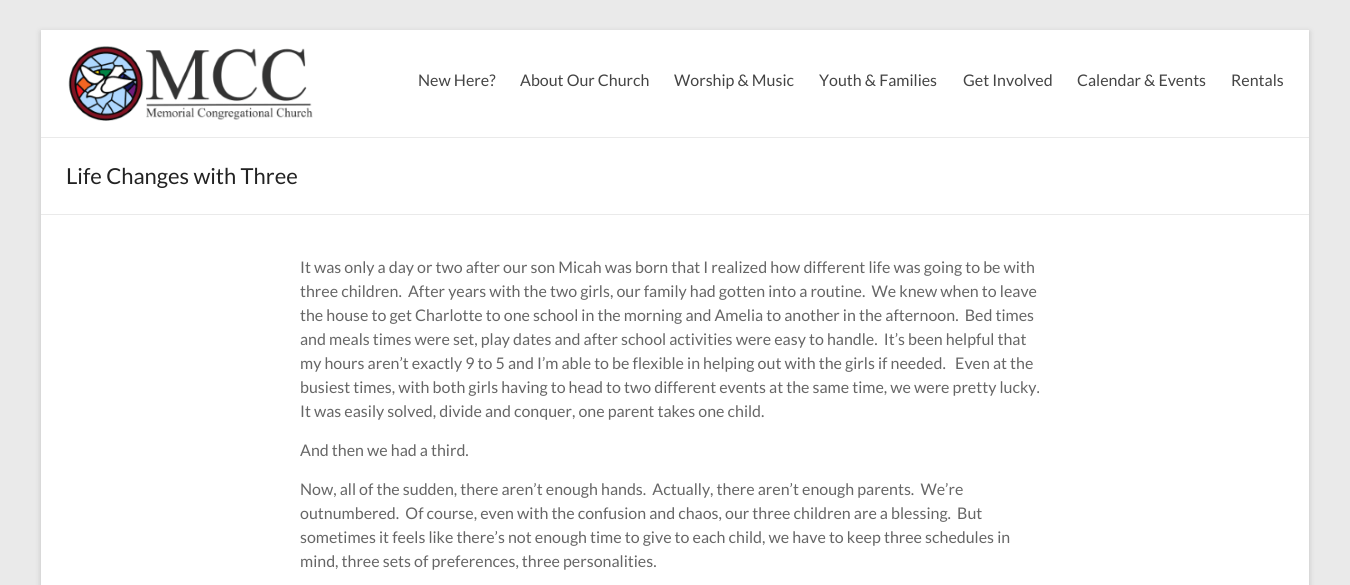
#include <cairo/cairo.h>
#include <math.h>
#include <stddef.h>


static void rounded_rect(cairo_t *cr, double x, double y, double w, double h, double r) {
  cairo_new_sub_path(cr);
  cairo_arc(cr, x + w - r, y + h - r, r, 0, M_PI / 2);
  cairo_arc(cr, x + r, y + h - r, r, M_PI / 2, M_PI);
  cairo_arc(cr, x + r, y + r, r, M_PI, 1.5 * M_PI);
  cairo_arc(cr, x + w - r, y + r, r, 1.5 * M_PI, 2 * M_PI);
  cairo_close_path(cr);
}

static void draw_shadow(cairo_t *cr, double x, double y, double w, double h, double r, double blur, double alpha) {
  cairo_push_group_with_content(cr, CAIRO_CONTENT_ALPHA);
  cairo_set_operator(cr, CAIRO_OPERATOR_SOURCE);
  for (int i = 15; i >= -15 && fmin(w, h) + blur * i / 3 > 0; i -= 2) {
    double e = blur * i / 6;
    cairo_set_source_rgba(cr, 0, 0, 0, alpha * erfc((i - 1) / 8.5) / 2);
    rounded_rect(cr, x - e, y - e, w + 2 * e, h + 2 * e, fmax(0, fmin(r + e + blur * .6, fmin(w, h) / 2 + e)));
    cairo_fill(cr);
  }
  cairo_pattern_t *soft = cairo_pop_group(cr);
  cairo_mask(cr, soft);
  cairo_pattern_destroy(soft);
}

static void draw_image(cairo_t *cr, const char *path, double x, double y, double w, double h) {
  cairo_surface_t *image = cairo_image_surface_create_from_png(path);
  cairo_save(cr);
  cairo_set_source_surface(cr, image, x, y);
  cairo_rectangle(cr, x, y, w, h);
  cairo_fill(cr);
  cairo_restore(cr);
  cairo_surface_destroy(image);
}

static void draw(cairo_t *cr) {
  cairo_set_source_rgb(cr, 234 / 255.0, 234 / 255.0, 234 / 255.0);
  cairo_paint(cr);
  cairo_set_source_rgb(cr, 100 / 255.0, 100 / 255.0, 100 / 255.0);
  draw_shadow(cr, 41, 32, 1268, 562, 0, 3, 0.3);
  cairo_set_source_rgb(cr, 1, 1, 1);
  cairo_rectangle(cr, 41, 30, 1268, 555);
  cairo_fill(cr);
  cairo_set_source_rgb(cr, 234 / 255.0, 234 / 255.0, 234 / 255.0);
  cairo_rectangle(cr, 41, 137, 1268, 1);
  cairo_fill(cr);
  draw_image(cr, "images/1.png", 68, 46, 245, 75);
  cairo_rectangle(cr, 41, 214, 1268, 1);
  cairo_fill(cr);
  cairo_select_font_face(cr, "Lato", CAIRO_FONT_SLANT_NORMAL, CAIRO_FONT_WEIGHT_NORMAL);
  cairo_set_font_size(cr, 16);
  cairo_set_source_rgb(cr, 68 / 255.0, 68 / 255.0, 68 / 255.0);
  cairo_move_to(cr, 418, 86);
  cairo_show_text(cr, "New Here?");
  cairo_move_to(cr, 520, 86);
  cairo_show_text(cr, "About Our Church");
  cairo_move_to(cr, 674, 86);
  cairo_show_text(cr, "Worship & Music");
  cairo_move_to(cr, 819, 86);
  cairo_show_text(cr, "Youth & Families");
  cairo_move_to(cr, 963, 86);
  cairo_show_text(cr, "Get Involved");
  cairo_move_to(cr, 1077, 86);
  cairo_show_text(cr, "Calendar & Events");
  cairo_move_to(cr, 1231, 86);
  cairo_show_text(cr, "Rentals");
  cairo_set_font_size(cr, 22);
  cairo_set_source_rgb(cr, 34 / 255.0, 34 / 255.0, 34 / 255.0);
  cairo_move_to(cr, 66, 184);
  cairo_show_text(cr, "Life Changes with Three");
  cairo_set_font_size(cr, 16);
  cairo_set_source_rgb(cr, 102 / 255.0, 102 / 255.0, 102 / 255.0);
  cairo_move_to(cr, 300, 273);
  cairo_show_text(cr, "It was only a day or two after our son Micah was born that I realized how different life was going to be with");
  cairo_move_to(cr, 300, 297);
  cairo_show_text(cr, "three children.  After years with the two girls, our family had gotten into a routine.  We knew when to leave");
  cairo_move_to(cr, 300, 321);
  cairo_show_text(cr, "the house to get Charlotte to one school in the morning and Amelia to another in the afternoon.  Bed times");
  cairo_move_to(cr, 300, 345);
  cairo_show_text(cr, "and meals times were set, play dates and after school activities were easy to handle.  It’s been helpful that");
  cairo_move_to(cr, 300, 369);
  cairo_show_text(cr, "my hours aren’t exactly 9 to 5 and I’m able to be flexible in helping out with the girls if needed.   Even at the");
  cairo_move_to(cr, 300, 393);
  cairo_show_text(cr, "busiest times, with both girls having to head to two different events at the same time, we were pretty lucky.");
  cairo_move_to(cr, 300, 417);
  cairo_show_text(cr, "It was easily solved, divide and conquer, one parent takes one child.");
  cairo_move_to(cr, 300, 456);
  cairo_show_text(cr, "And then we had a third.");
  cairo_move_to(cr, 300, 495);
  cairo_show_text(cr, "Now, all of the sudden, there aren’t enough hands.  Actually, there aren’t enough parents.  We’re");
  cairo_move_to(cr, 300, 519);
  cairo_show_text(cr, "outnumbered.  Of course, even with the confusion and chaos, our three children are a blessing.  But");
  cairo_move_to(cr, 300, 543);
  cairo_show_text(cr, "sometimes it feels like there’s not enough time to give to each child, we have to keep three schedules in");
  cairo_move_to(cr, 300, 567);
  cairo_show_text(cr, "mind, three sets of preferences, three personalities.");
}

int main(void) {
  cairo_surface_t *surface = cairo_image_surface_create(CAIRO_FORMAT_RGB24, 1350, 585);
  cairo_t *cr = cairo_create(surface);
  cairo_font_options_t *options = cairo_font_options_create();
  cairo_font_options_set_hint_metrics(options, CAIRO_HINT_METRICS_OFF);
  cairo_font_options_set_hint_style(options, CAIRO_HINT_STYLE_NONE);
  cairo_set_font_options(cr, options);
  cairo_set_miter_limit(cr, 4);
  draw(cr);
  cairo_surface_write_to_png(surface, "out.png");
  cairo_font_options_destroy(options);
  cairo_destroy(cr);
  cairo_surface_destroy(surface);
  return 0;
}
